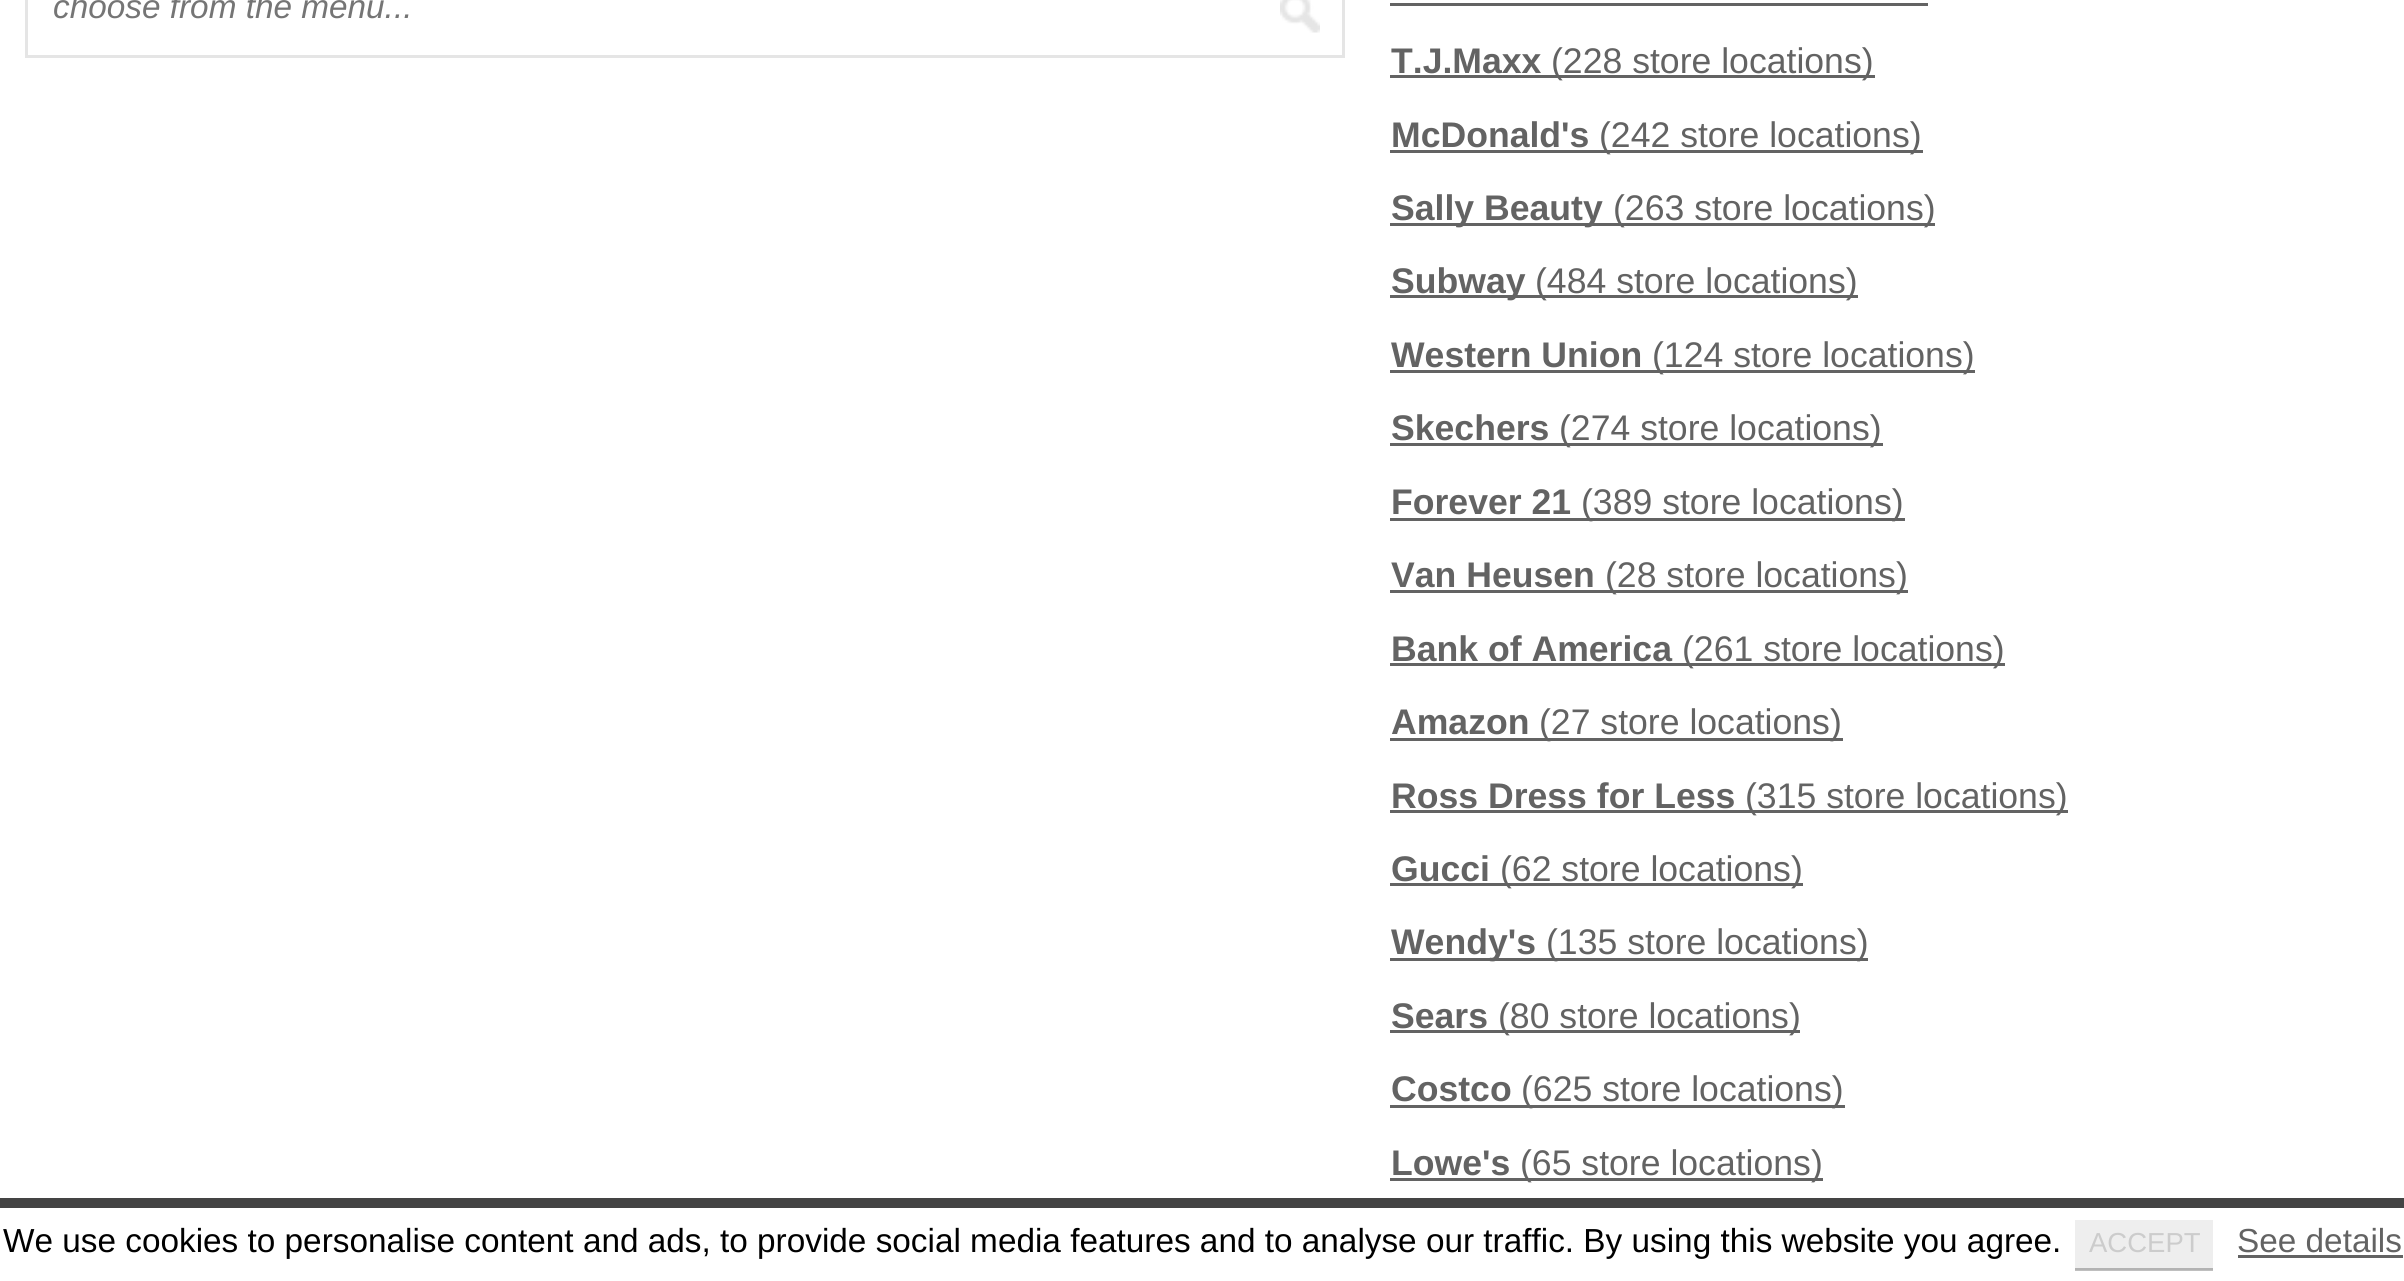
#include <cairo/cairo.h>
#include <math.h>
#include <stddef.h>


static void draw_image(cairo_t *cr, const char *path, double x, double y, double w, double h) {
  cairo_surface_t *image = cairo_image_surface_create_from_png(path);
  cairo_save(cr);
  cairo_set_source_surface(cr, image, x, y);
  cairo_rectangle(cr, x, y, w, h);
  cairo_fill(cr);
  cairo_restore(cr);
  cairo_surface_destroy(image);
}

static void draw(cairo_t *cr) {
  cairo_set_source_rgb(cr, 1, 1, 1);
  cairo_paint(cr);
  cairo_rectangle(cr, 26.5, -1.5, 1317, 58);
  cairo_set_source_rgb(cr, 229 / 255.0, 229 / 255.0, 229 / 255.0);
  cairo_set_line_width(cr, 3);
  cairo_stroke(cr);
  draw_image(cr, "images/1.png", 1280, 0, 40, 33);
  cairo_set_source_rgb(cr, 99 / 255.0, 99 / 255.0, 99 / 255.0);
  cairo_rectangle(cr, 1390, 3, 538, 3);
  cairo_fill(cr);
  cairo_rectangle(cr, 1390, 75, 485, 3);
  cairo_fill(cr);
  cairo_rectangle(cr, 1390, 150, 533, 3);
  cairo_fill(cr);
  cairo_rectangle(cr, 1390, 223, 545, 3);
  cairo_fill(cr);
  cairo_rectangle(cr, 1390, 295, 135, 3);
  cairo_fill(cr);
  cairo_rectangle(cr, 1525, 295, 333, 3);
  cairo_fill(cr);
  cairo_rectangle(cr, 1390, 370, 585, 3);
  cairo_fill(cr);
  cairo_rectangle(cr, 1390, 443, 493, 3);
  cairo_fill(cr);
  cairo_rectangle(cr, 1390, 518, 515, 3);
  cairo_fill(cr);
  cairo_rectangle(cr, 1390, 590, 518, 3);
  cairo_fill(cr);
  cairo_rectangle(cr, 1390, 663, 615, 3);
  cairo_fill(cr);
  cairo_rectangle(cr, 1390, 738, 453, 3);
  cairo_fill(cr);
  cairo_rectangle(cr, 1390, 810, 678, 3);
  cairo_fill(cr);
  cairo_rectangle(cr, 1390, 883, 413, 3);
  cairo_fill(cr);
  cairo_rectangle(cr, 1390, 958, 478, 3);
  cairo_fill(cr);
  cairo_rectangle(cr, 1390, 1030, 410, 3);
  cairo_fill(cr);
  cairo_rectangle(cr, 1390, 1105, 455, 3);
  cairo_fill(cr);
  cairo_rectangle(cr, 1390, 1178, 433, 3);
  cairo_fill(cr);
  cairo_set_source_rgb(cr, 191 / 255.0, 191 / 255.0, 191 / 255.0);
  cairo_rectangle(cr, 2075, 1270, 138, 1);
  cairo_fill(cr);
  cairo_set_source_rgb(cr, 68 / 255.0, 68 / 255.0, 68 / 255.0);
  cairo_rectangle(cr, 0, 1198, 2404, 10);
  cairo_fill(cr);
  cairo_set_source_rgb(cr, 238 / 255.0, 238 / 255.0, 238 / 255.0);
  cairo_rectangle(cr, 2075, 1220, 138, 48);
  cairo_fill(cr);
  cairo_set_source_rgb(cr, 179 / 255.0, 179 / 255.0, 179 / 255.0);
  cairo_rectangle(cr, 2075, 1268, 138, 2);
  cairo_fill(cr);
  cairo_set_source_rgb(cr, 99 / 255.0, 99 / 255.0, 99 / 255.0);
  cairo_rectangle(cr, 2238, 1255, 165, 3);
  cairo_fill(cr);
  cairo_select_font_face(cr, "Liberation Sans", CAIRO_FONT_SLANT_ITALIC, CAIRO_FONT_WEIGHT_NORMAL);
  cairo_set_font_size(cr, 33.33);
  cairo_set_source_rgb(cr, 117 / 255.0, 117 / 255.0, 117 / 255.0);
  cairo_move_to(cr, 53, 18);
  cairo_show_text(cr, "choose from the menu...");
  cairo_select_font_face(cr, "Liberation Sans", CAIRO_FONT_SLANT_NORMAL, CAIRO_FONT_WEIGHT_BOLD);
  cairo_set_font_size(cr, 35.6);
  cairo_set_source_rgb(cr, 99 / 255.0, 99 / 255.0, 99 / 255.0);
  cairo_move_to(cr, 1391, 73);
  cairo_show_text(cr, "T.J.Maxx");
  cairo_select_font_face(cr, "Liberation Sans", CAIRO_FONT_SLANT_NORMAL, CAIRO_FONT_WEIGHT_NORMAL);
  cairo_move_to(cr, 1551, 73);
  cairo_show_text(cr, "(228 store locations)");
  cairo_select_font_face(cr, "Liberation Sans", CAIRO_FONT_SLANT_NORMAL, CAIRO_FONT_WEIGHT_BOLD);
  cairo_move_to(cr, 1391, 147);
  cairo_show_text(cr, "McDonald's");
  cairo_select_font_face(cr, "Liberation Sans", CAIRO_FONT_SLANT_NORMAL, CAIRO_FONT_WEIGHT_NORMAL);
  cairo_move_to(cr, 1599, 147);
  cairo_show_text(cr, "(242 store locations)");
  cairo_select_font_face(cr, "Liberation Sans", CAIRO_FONT_SLANT_NORMAL, CAIRO_FONT_WEIGHT_BOLD);
  cairo_move_to(cr, 1391, 220);
  cairo_show_text(cr, "Sally Beauty");
  cairo_select_font_face(cr, "Liberation Sans", CAIRO_FONT_SLANT_NORMAL, CAIRO_FONT_WEIGHT_NORMAL);
  cairo_move_to(cr, 1613, 220);
  cairo_show_text(cr, "(263 store locations)");
  cairo_select_font_face(cr, "Liberation Sans", CAIRO_FONT_SLANT_NORMAL, CAIRO_FONT_WEIGHT_BOLD);
  cairo_move_to(cr, 1391, 293);
  cairo_show_text(cr, "Subway");
  cairo_select_font_face(cr, "Liberation Sans", CAIRO_FONT_SLANT_NORMAL, CAIRO_FONT_WEIGHT_NORMAL);
  cairo_move_to(cr, 1535, 293);
  cairo_show_text(cr, "(484 store locations)");
  cairo_select_font_face(cr, "Liberation Sans", CAIRO_FONT_SLANT_NORMAL, CAIRO_FONT_WEIGHT_BOLD);
  cairo_move_to(cr, 1391, 367);
  cairo_show_text(cr, "Western Union");
  cairo_select_font_face(cr, "Liberation Sans", CAIRO_FONT_SLANT_NORMAL, CAIRO_FONT_WEIGHT_NORMAL);
  cairo_move_to(cr, 1652, 367);
  cairo_show_text(cr, "(124 store locations)");
  cairo_select_font_face(cr, "Liberation Sans", CAIRO_FONT_SLANT_NORMAL, CAIRO_FONT_WEIGHT_BOLD);
  cairo_move_to(cr, 1391, 440);
  cairo_show_text(cr, "Skechers");
  cairo_select_font_face(cr, "Liberation Sans", CAIRO_FONT_SLANT_NORMAL, CAIRO_FONT_WEIGHT_NORMAL);
  cairo_move_to(cr, 1559, 440);
  cairo_show_text(cr, "(274 store locations)");
  cairo_select_font_face(cr, "Liberation Sans", CAIRO_FONT_SLANT_NORMAL, CAIRO_FONT_WEIGHT_BOLD);
  cairo_move_to(cr, 1391, 514);
  cairo_show_text(cr, "Forever 21");
  cairo_select_font_face(cr, "Liberation Sans", CAIRO_FONT_SLANT_NORMAL, CAIRO_FONT_WEIGHT_NORMAL);
  cairo_move_to(cr, 1581, 514);
  cairo_show_text(cr, "(389 store locations)");
  cairo_select_font_face(cr, "Liberation Sans", CAIRO_FONT_SLANT_NORMAL, CAIRO_FONT_WEIGHT_BOLD);
  cairo_move_to(cr, 1391, 587);
  cairo_show_text(cr, "Van Heusen");
  cairo_select_font_face(cr, "Liberation Sans", CAIRO_FONT_SLANT_NORMAL, CAIRO_FONT_WEIGHT_NORMAL);
  cairo_move_to(cr, 1605, 587);
  cairo_show_text(cr, "(28 store locations)");
  cairo_select_font_face(cr, "Liberation Sans", CAIRO_FONT_SLANT_NORMAL, CAIRO_FONT_WEIGHT_BOLD);
  cairo_move_to(cr, 1391, 661);
  cairo_show_text(cr, "Bank of America");
  cairo_select_font_face(cr, "Liberation Sans", CAIRO_FONT_SLANT_NORMAL, CAIRO_FONT_WEIGHT_NORMAL);
  cairo_move_to(cr, 1682, 661);
  cairo_show_text(cr, "(261 store locations)");
  cairo_select_font_face(cr, "Liberation Sans", CAIRO_FONT_SLANT_NORMAL, CAIRO_FONT_WEIGHT_BOLD);
  cairo_move_to(cr, 1391, 734);
  cairo_show_text(cr, "Amazon");
  cairo_select_font_face(cr, "Liberation Sans", CAIRO_FONT_SLANT_NORMAL, CAIRO_FONT_WEIGHT_NORMAL);
  cairo_move_to(cr, 1539, 734);
  cairo_show_text(cr, "(27 store locations)");
  cairo_select_font_face(cr, "Liberation Sans", CAIRO_FONT_SLANT_NORMAL, CAIRO_FONT_WEIGHT_BOLD);
  cairo_move_to(cr, 1391, 808);
  cairo_show_text(cr, "Ross Dress for Less");
  cairo_select_font_face(cr, "Liberation Sans", CAIRO_FONT_SLANT_NORMAL, CAIRO_FONT_WEIGHT_NORMAL);
  cairo_move_to(cr, 1745, 808);
  cairo_show_text(cr, "(315 store locations)");
  cairo_select_font_face(cr, "Liberation Sans", CAIRO_FONT_SLANT_NORMAL, CAIRO_FONT_WEIGHT_BOLD);
  cairo_move_to(cr, 1391, 881);
  cairo_show_text(cr, "Gucci");
  cairo_select_font_face(cr, "Liberation Sans", CAIRO_FONT_SLANT_NORMAL, CAIRO_FONT_WEIGHT_NORMAL);
  cairo_move_to(cr, 1500, 881);
  cairo_show_text(cr, "(62 store locations)");
  cairo_select_font_face(cr, "Liberation Sans", CAIRO_FONT_SLANT_NORMAL, CAIRO_FONT_WEIGHT_BOLD);
  cairo_move_to(cr, 1391, 954);
  cairo_show_text(cr, "Wendy's");
  cairo_select_font_face(cr, "Liberation Sans", CAIRO_FONT_SLANT_NORMAL, CAIRO_FONT_WEIGHT_NORMAL);
  cairo_move_to(cr, 1546, 954);
  cairo_show_text(cr, "(135 store locations)");
  cairo_select_font_face(cr, "Liberation Sans", CAIRO_FONT_SLANT_NORMAL, CAIRO_FONT_WEIGHT_BOLD);
  cairo_move_to(cr, 1391, 1028);
  cairo_show_text(cr, "Sears");
  cairo_select_font_face(cr, "Liberation Sans", CAIRO_FONT_SLANT_NORMAL, CAIRO_FONT_WEIGHT_NORMAL);
  cairo_move_to(cr, 1498, 1028);
  cairo_show_text(cr, "(80 store locations)");
  cairo_select_font_face(cr, "Liberation Sans", CAIRO_FONT_SLANT_NORMAL, CAIRO_FONT_WEIGHT_BOLD);
  cairo_move_to(cr, 1391, 1101);
  cairo_show_text(cr, "Costco");
  cairo_select_font_face(cr, "Liberation Sans", CAIRO_FONT_SLANT_NORMAL, CAIRO_FONT_WEIGHT_NORMAL);
  cairo_move_to(cr, 1521, 1101);
  cairo_show_text(cr, "(625 store locations)");
  cairo_select_font_face(cr, "Liberation Sans", CAIRO_FONT_SLANT_NORMAL, CAIRO_FONT_WEIGHT_BOLD);
  cairo_move_to(cr, 1391, 1175);
  cairo_show_text(cr, "Lowe's");
  cairo_select_font_face(cr, "Liberation Sans", CAIRO_FONT_SLANT_NORMAL, CAIRO_FONT_WEIGHT_NORMAL);
  cairo_move_to(cr, 1520, 1175);
  cairo_show_text(cr, "(65 store locations)");
  cairo_set_font_size(cr, 33.33);
  cairo_set_source_rgb(cr, 0, 0, 0);
  cairo_move_to(cr, 3, 1252);
  cairo_show_text(cr, "We use cookies to personalise content and ads, to provide social media features and to analyse our traffic. By using this website you agree.");
  cairo_set_font_size(cr, 27.5);
  cairo_set_source_rgb(cr, 204 / 255.0, 204 / 255.0, 204 / 255.0);
  cairo_move_to(cr, 2089, 1252);
  cairo_show_text(cr, "ACCEPT");
  cairo_set_font_size(cr, 33.33);
  cairo_set_source_rgb(cr, 99 / 255.0, 99 / 255.0, 99 / 255.0);
  cairo_move_to(cr, 2237, 1252);
  cairo_show_text(cr, "See details");
}

int main(void) {
  cairo_surface_t *surface = cairo_image_surface_create(CAIRO_FORMAT_RGB24, 2404, 1281);
  cairo_t *cr = cairo_create(surface);
  cairo_font_options_t *options = cairo_font_options_create();
  cairo_font_options_set_hint_metrics(options, CAIRO_HINT_METRICS_OFF);
  cairo_font_options_set_hint_style(options, CAIRO_HINT_STYLE_NONE);
  cairo_set_font_options(cr, options);
  cairo_set_miter_limit(cr, 4);
  draw(cr);
  cairo_surface_write_to_png(surface, "out.png");
  cairo_font_options_destroy(options);
  cairo_destroy(cr);
  cairo_surface_destroy(surface);
  return 0;
}
